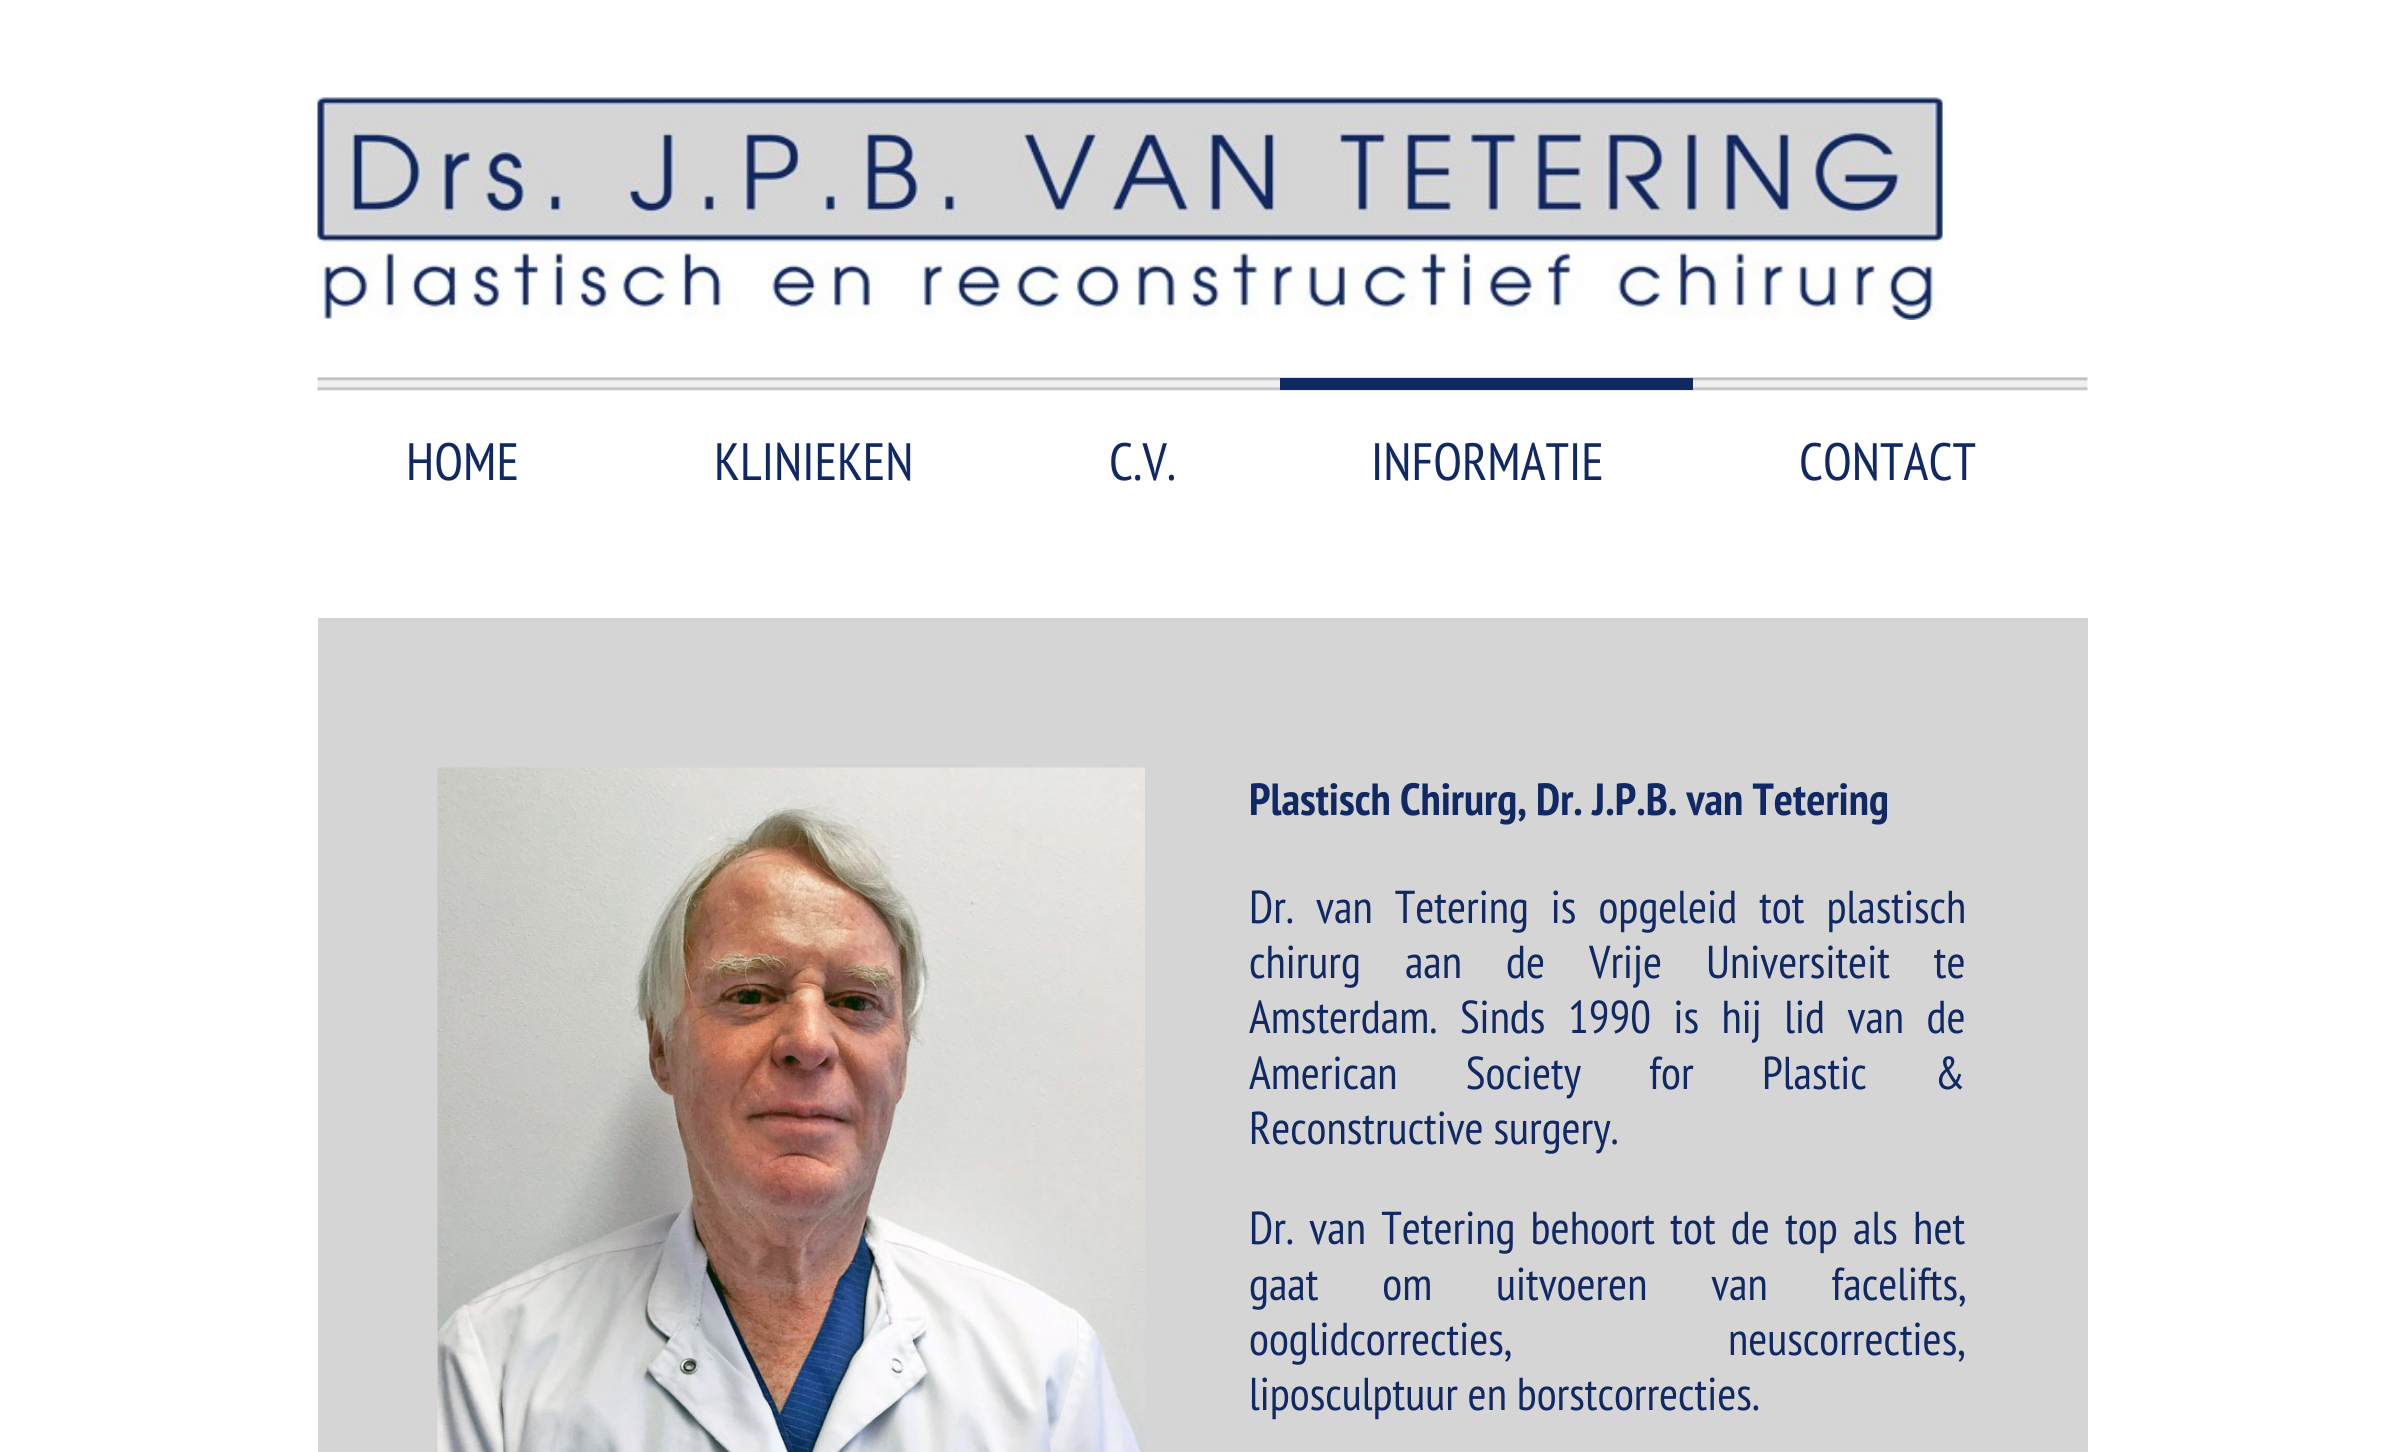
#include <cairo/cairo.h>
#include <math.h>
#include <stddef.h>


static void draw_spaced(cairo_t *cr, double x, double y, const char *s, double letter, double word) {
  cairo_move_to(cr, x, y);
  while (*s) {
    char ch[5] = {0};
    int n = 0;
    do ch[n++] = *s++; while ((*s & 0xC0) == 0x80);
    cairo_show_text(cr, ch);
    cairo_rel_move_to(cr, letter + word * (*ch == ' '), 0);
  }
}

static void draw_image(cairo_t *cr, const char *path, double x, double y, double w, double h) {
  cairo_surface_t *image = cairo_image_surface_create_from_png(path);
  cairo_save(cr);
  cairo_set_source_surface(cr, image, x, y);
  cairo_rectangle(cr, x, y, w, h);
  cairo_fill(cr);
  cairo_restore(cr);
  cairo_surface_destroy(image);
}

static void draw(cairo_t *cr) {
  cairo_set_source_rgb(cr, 1, 1, 1);
  cairo_paint(cr);
  draw_image(cr, "images/1.png", 317, 97, 1626, 223);
  draw_image(cr, "images/2.png", 317, 377, 1771, 14);
  cairo_set_source_rgb(cr, 16 / 255.0, 40 / 255.0, 100 / 255.0);
  cairo_rectangle(cr, 1280, 378, 413, 12);
  cairo_fill(cr);
  cairo_set_source_rgb(cr, 213 / 255.0, 213 / 255.0, 213 / 255.0);
  cairo_rectangle(cr, 318, 618, 1770, 834);
  cairo_fill(cr);
  draw_image(cr, "images/3.png", 437, 767, 708, 685);
  cairo_select_font_face(cr, "PT Sans Narrow", CAIRO_FONT_SLANT_NORMAL, CAIRO_FONT_WEIGHT_NORMAL);
  cairo_set_font_size(cr, 52.5);
  cairo_set_source_rgb(cr, 16 / 255.0, 40 / 255.0, 100 / 255.0);
  cairo_move_to(cr, 406, 480);
  cairo_show_text(cr, "HOME");
  cairo_move_to(cr, 714, 480);
  cairo_show_text(cr, "KLINIEKEN");
  cairo_move_to(cr, 1109, 480);
  cairo_show_text(cr, "C.V.");
  cairo_move_to(cr, 1371, 480);
  cairo_show_text(cr, "INFORMATIE");
  cairo_move_to(cr, 1799, 480);
  cairo_show_text(cr, "CONTACT");
  cairo_select_font_face(cr, "PT Sans Narrow", CAIRO_FONT_SLANT_NORMAL, CAIRO_FONT_WEIGHT_BOLD);
  cairo_set_font_size(cr, 45);
  cairo_move_to(cr, 1249, 815);
  cairo_show_text(cr, "Plastisch Chirurg, Dr. J.P.B. van Tetering");
  cairo_select_font_face(cr, "PT Sans Narrow", CAIRO_FONT_SLANT_NORMAL, CAIRO_FONT_WEIGHT_NORMAL);
  cairo_set_font_size(cr, 46.1);
  draw_spaced(cr, 1249, 923, "Dr. van Tetering is opgeleid tot plastisch", 0, 12.25);
  draw_spaced(cr, 1249, 978, "chirurg aan de Vrije Universiteit te", 0, 34.25);
  draw_spaced(cr, 1249, 1033, "Amsterdam. Sinds 1990 is hij lid van de", 0, 12.75);
  draw_spaced(cr, 1249, 1089, "American Society for Plastic &", 0, 58.5);
  cairo_move_to(cr, 1249, 1144);
  cairo_show_text(cr, "Reconstructive surgery.");
  draw_spaced(cr, 1249, 1244, "Dr. van Tetering behoort tot de top als het", 0, 5.5);
  draw_spaced(cr, 1249, 1300, "gaat om uitvoeren van facelifts,", 0, 54);
  cairo_move_to(cr, 1249, 1355);
  cairo_show_text(cr, "ooglidcorrecties,");
  cairo_move_to(cr, 1728, 1355);
  cairo_show_text(cr, "neuscorrecties,");
  cairo_move_to(cr, 1249, 1410);
  cairo_show_text(cr, "liposculptuur en borstcorrecties.");
}

int main(void) {
  cairo_surface_t *surface = cairo_image_surface_create(CAIRO_FORMAT_RGB24, 2401, 1452);
  cairo_t *cr = cairo_create(surface);
  cairo_font_options_t *options = cairo_font_options_create();
  cairo_font_options_set_hint_metrics(options, CAIRO_HINT_METRICS_OFF);
  cairo_font_options_set_hint_style(options, CAIRO_HINT_STYLE_NONE);
  cairo_set_font_options(cr, options);
  cairo_set_miter_limit(cr, 4);
  draw(cr);
  cairo_surface_write_to_png(surface, "out.png");
  cairo_font_options_destroy(options);
  cairo_destroy(cr);
  cairo_surface_destroy(surface);
  return 0;
}
